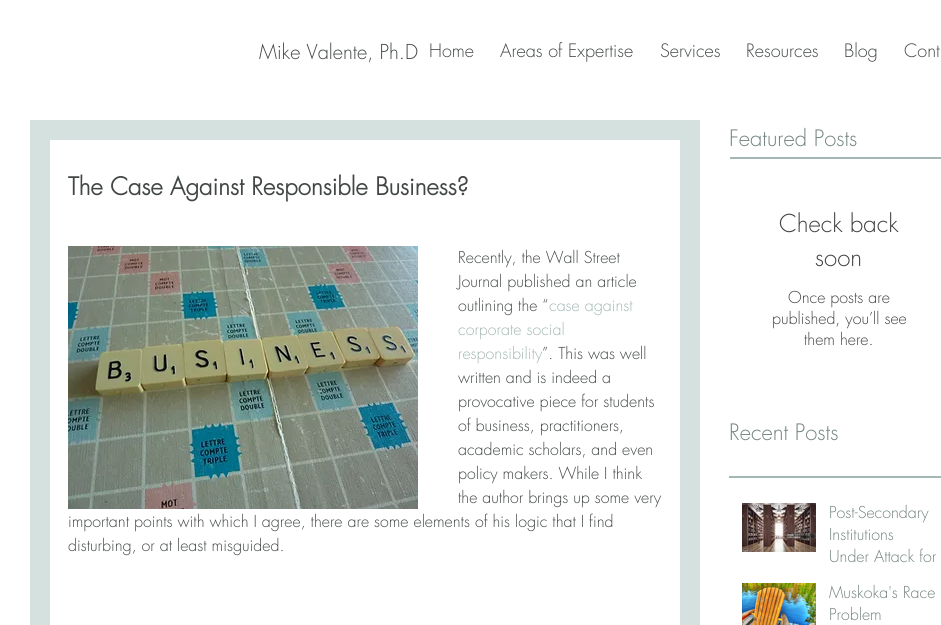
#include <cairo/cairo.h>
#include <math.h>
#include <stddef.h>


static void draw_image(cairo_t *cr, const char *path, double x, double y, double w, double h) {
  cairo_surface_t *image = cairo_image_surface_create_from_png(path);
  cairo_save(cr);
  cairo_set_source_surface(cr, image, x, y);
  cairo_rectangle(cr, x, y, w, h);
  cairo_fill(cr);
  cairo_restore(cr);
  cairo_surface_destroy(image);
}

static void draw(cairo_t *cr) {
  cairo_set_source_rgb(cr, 1, 1, 1);
  cairo_paint(cr);
  cairo_set_source_rgb(cr, 163 / 255.0, 184 / 255.0, 180 / 255.0);
  cairo_rectangle(cr, 730, 157, 211, 2);
  cairo_fill(cr);
  cairo_set_source_rgb(cr, 213 / 255.0, 225 / 255.0, 223 / 255.0);
  cairo_rectangle(cr, 30, 120, 670, 505);
  cairo_fill(cr);
  cairo_set_source_rgb(cr, 1, 1, 1);
  cairo_rectangle(cr, 50, 140, 630, 485);
  cairo_fill(cr);
  draw_image(cr, "images/1.png", 68, 246, 350, 263);
  cairo_set_source_rgb(cr, 163 / 255.0, 184 / 255.0, 180 / 255.0);
  cairo_rectangle(cr, 729, 476, 212, 2);
  cairo_fill(cr);
  draw_image(cr, "images/2.png", 742, 503, 74, 49);
  draw_image(cr, "images/3.png", 742, 583, 74, 42);
  cairo_select_font_face(cr, "futura Light", CAIRO_FONT_SLANT_NORMAL, CAIRO_FONT_WEIGHT_NORMAL);
  cairo_set_font_size(cr, 20);
  cairo_set_source_rgb(cr, 66 / 255.0, 71 / 255.0, 70 / 255.0);
  cairo_move_to(cr, 259, 59);
  cairo_show_text(cr, "Mike Valente, Ph.D");
  cairo_set_font_size(cr, 18);
  cairo_move_to(cr, 429, 57);
  cairo_show_text(cr, "Home");
  cairo_move_to(cr, 500, 57);
  cairo_show_text(cr, "Areas of Expertise");
  cairo_move_to(cr, 660, 57);
  cairo_show_text(cr, "Services");
  cairo_move_to(cr, 746, 57);
  cairo_show_text(cr, "Resources");
  cairo_move_to(cr, 844, 57);
  cairo_show_text(cr, "Blog");
  cairo_move_to(cr, 904, 57);
  cairo_show_text(cr, "Cont");
  cairo_set_font_size(cr, 22);
  cairo_set_source_rgb(cr, 114 / 255.0, 130 / 255.0, 127 / 255.0);
  cairo_move_to(cr, 729, 146);
  cairo_show_text(cr, "Featured Posts");
  cairo_select_font_face(cr, "futura", CAIRO_FONT_SLANT_NORMAL, CAIRO_FONT_WEIGHT_BOLD);
  cairo_set_font_size(cr, 24);
  cairo_set_source_rgb(cr, 66 / 255.0, 71 / 255.0, 70 / 255.0);
  cairo_move_to(cr, 68, 195);
  cairo_show_text(cr, "The Case Against Responsible Business?");
  cairo_select_font_face(cr, "futura Light", CAIRO_FONT_SLANT_NORMAL, CAIRO_FONT_WEIGHT_NORMAL);
  cairo_set_font_size(cr, 16);
  cairo_move_to(cr, 458, 263);
  cairo_show_text(cr, "Recently, the Wall Street");
  cairo_move_to(cr, 458, 287);
  cairo_show_text(cr, "Journal published an article");
  cairo_move_to(cr, 458, 311);
  cairo_show_text(cr, "outlining the “");
  cairo_set_source_rgb(cr, 163 / 255.0, 184 / 255.0, 180 / 255.0);
  cairo_move_to(cr, 549, 311);
  cairo_show_text(cr, "case against");
  cairo_move_to(cr, 458, 335);
  cairo_show_text(cr, "corporate social");
  cairo_move_to(cr, 458, 359);
  cairo_show_text(cr, "responsibility");
  cairo_set_source_rgb(cr, 66 / 255.0, 71 / 255.0, 70 / 255.0);
  cairo_move_to(cr, 542, 359);
  cairo_show_text(cr, "”. This was well");
  cairo_move_to(cr, 458, 383);
  cairo_show_text(cr, "written and is indeed a");
  cairo_move_to(cr, 458, 407);
  cairo_show_text(cr, "provocative piece for students");
  cairo_move_to(cr, 458, 431);
  cairo_show_text(cr, "of business, practitioners,");
  cairo_move_to(cr, 458, 455);
  cairo_show_text(cr, "academic scholars, and even");
  cairo_move_to(cr, 458, 479);
  cairo_show_text(cr, "policy makers. While I think");
  cairo_move_to(cr, 458, 503);
  cairo_show_text(cr, "the author brings up some very");
  cairo_move_to(cr, 68, 527);
  cairo_show_text(cr, "important points with which I agree, there are some elements of his logic that I find");
  cairo_move_to(cr, 68, 551);
  cairo_show_text(cr, "disturbing, or at least misguided.");
  cairo_set_font_size(cr, 24);
  cairo_set_source_rgb(cr, 65 / 255.0, 65 / 255.0, 65 / 255.0);
  cairo_move_to(cr, 779, 232);
  cairo_show_text(cr, "Check back");
  cairo_move_to(cr, 815, 266);
  cairo_show_text(cr, "soon");
  cairo_set_font_size(cr, 16);
  cairo_move_to(cr, 788, 303);
  cairo_show_text(cr, "Once posts are");
  cairo_move_to(cr, 772, 324);
  cairo_show_text(cr, "published, you’ll see");
  cairo_move_to(cr, 804, 345);
  cairo_show_text(cr, "them here.");
  cairo_set_font_size(cr, 22);
  cairo_set_source_rgb(cr, 114 / 255.0, 130 / 255.0, 127 / 255.0);
  cairo_move_to(cr, 729, 440);
  cairo_show_text(cr, "Recent Posts");
  cairo_set_font_size(cr, 16);
  cairo_move_to(cr, 829, 518);
  cairo_show_text(cr, "Post-Secondary");
  cairo_move_to(cr, 829, 540);
  cairo_show_text(cr, "Institutions");
  cairo_move_to(cr, 829, 562);
  cairo_show_text(cr, "Under Attack for");
  cairo_move_to(cr, 829, 598);
  cairo_show_text(cr, "Muskoka's Race");
  cairo_move_to(cr, 829, 620);
  cairo_show_text(cr, "Problem");
}

int main(void) {
  cairo_surface_t *surface = cairo_image_surface_create(CAIRO_FORMAT_RGB24, 941, 625);
  cairo_t *cr = cairo_create(surface);
  cairo_font_options_t *options = cairo_font_options_create();
  cairo_font_options_set_hint_metrics(options, CAIRO_HINT_METRICS_OFF);
  cairo_font_options_set_hint_style(options, CAIRO_HINT_STYLE_NONE);
  cairo_set_font_options(cr, options);
  cairo_set_miter_limit(cr, 4);
  draw(cr);
  cairo_surface_write_to_png(surface, "out.png");
  cairo_font_options_destroy(options);
  cairo_destroy(cr);
  cairo_surface_destroy(surface);
  return 0;
}
